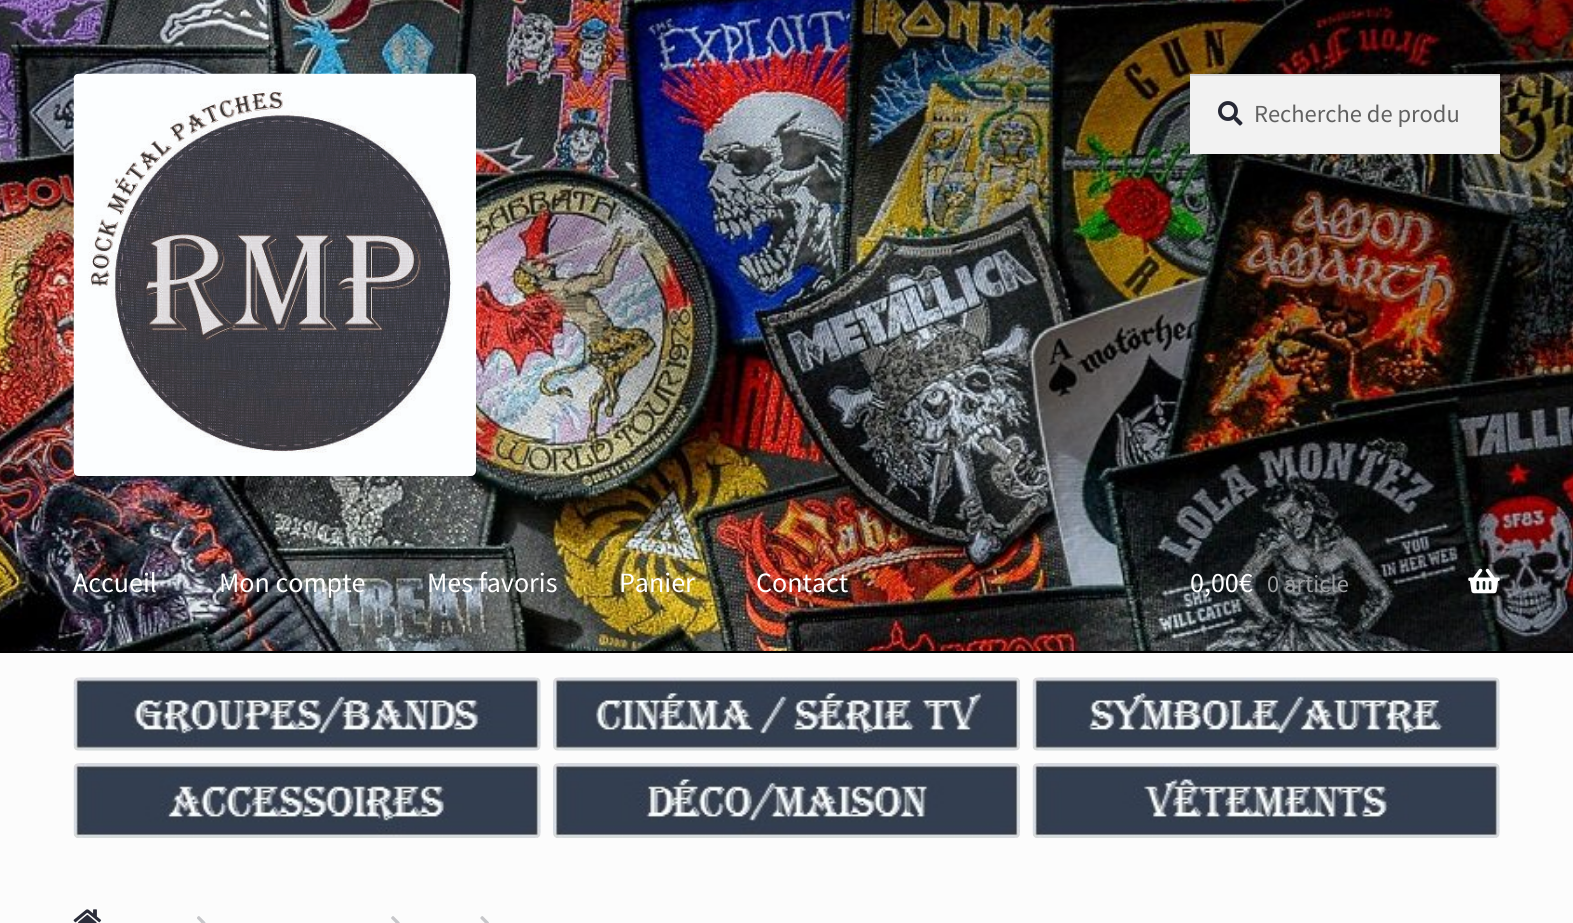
#include <cairo/cairo.h>
#include <math.h>
#include <stddef.h>


static void draw_image(cairo_t *cr, const char *path, double x, double y, double w, double h) {
  cairo_surface_t *image = cairo_image_surface_create_from_png(path);
  cairo_save(cr);
  cairo_set_source_surface(cr, image, x, y);
  cairo_rectangle(cr, x, y, w, h);
  cairo_fill(cr);
  cairo_restore(cr);
  cairo_surface_destroy(image);
}

static void draw(cairo_t *cr) {
  cairo_set_source_rgb(cr, 252 / 255.0, 252 / 255.0, 252 / 255.0);
  cairo_paint(cr);
  draw_image(cr, "images/1.png", 0, 0, 1573, 651);
  cairo_set_source_rgb(cr, 0, 0, 0);
  cairo_rectangle(cr, 0, 651, 1573, 2);
  cairo_fill(cr);
  draw_image(cr, "images/2.png", 73, 73, 403, 403);
  cairo_set_source_rgb(cr, 242 / 255.0, 242 / 255.0, 242 / 255.0);
  cairo_rectangle(cr, 1190, 76, 310, 78);
  cairo_fill(cr);
  draw_image(cr, "images/3.png", 1218, 101, 25, 25);
  cairo_set_source_rgb(cr, 212 / 255.0, 212 / 255.0, 212 / 255.0);
  cairo_rectangle(cr, 1190, 74, 310, 2);
  cairo_fill(cr);
  draw_image(cr, "images/4.png", 1468, 568, 32, 26);
  draw_image(cr, "images/5.png", 73, 677, 468, 74);
  draw_image(cr, "images/6.png", 553, 677, 467, 74);
  draw_image(cr, "images/7.png", 1032, 677, 468, 74);
  draw_image(cr, "images/8.png", 73, 763, 468, 75);
  draw_image(cr, "images/9.png", 553, 763, 467, 75);
  draw_image(cr, "images/10.png", 1032, 763, 468, 75);
  draw_image(cr, "images/11.png", 73, 909, 29, 14);
  draw_image(cr, "images/12.png", 197, 916, 9, 7);
  draw_image(cr, "images/13.png", 391, 916, 9, 7);
  draw_image(cr, "images/14.png", 480, 916, 9, 7);
  cairo_select_font_face(cr, "Source Sans Pro", CAIRO_FONT_SLANT_NORMAL, CAIRO_FONT_WEIGHT_NORMAL);
  cairo_set_font_size(cr, 24.5);
  cairo_set_source_rgb(cr, 97 / 255.0, 97 / 255.0, 97 / 255.0);
  cairo_move_to(cr, 1254, 122);
  cairo_show_text(cr, "Recherche de produ");
  cairo_set_font_size(cr, 28);
  cairo_set_source_rgb(cr, 1, 1, 1);
  cairo_move_to(cr, 73, 592);
  cairo_show_text(cr, "Accueil");
  cairo_move_to(cr, 219, 592);
  cairo_show_text(cr, "Mon compte");
  cairo_move_to(cr, 427, 592);
  cairo_show_text(cr, "Mes favoris");
  cairo_move_to(cr, 619, 592);
  cairo_show_text(cr, "Panier");
  cairo_move_to(cr, 756, 592);
  cairo_show_text(cr, "Contact");
  cairo_move_to(cr, 1190, 592);
  cairo_show_text(cr, "0,00€");
  cairo_set_font_size(cr, 24.5);
  cairo_set_source_rgb(cr, 155 / 255.0, 157 / 255.0, 159 / 255.0);
  cairo_move_to(cr, 1267, 592);
  cairo_show_text(cr, "0 article");
}

int main(void) {
  cairo_surface_t *surface = cairo_image_surface_create(CAIRO_FORMAT_RGB24, 1573, 923);
  cairo_t *cr = cairo_create(surface);
  cairo_font_options_t *options = cairo_font_options_create();
  cairo_font_options_set_hint_metrics(options, CAIRO_HINT_METRICS_OFF);
  cairo_font_options_set_hint_style(options, CAIRO_HINT_STYLE_NONE);
  cairo_set_font_options(cr, options);
  cairo_set_miter_limit(cr, 4);
  draw(cr);
  cairo_surface_write_to_png(surface, "out.png");
  cairo_font_options_destroy(options);
  cairo_destroy(cr);
  cairo_surface_destroy(surface);
  return 0;
}
